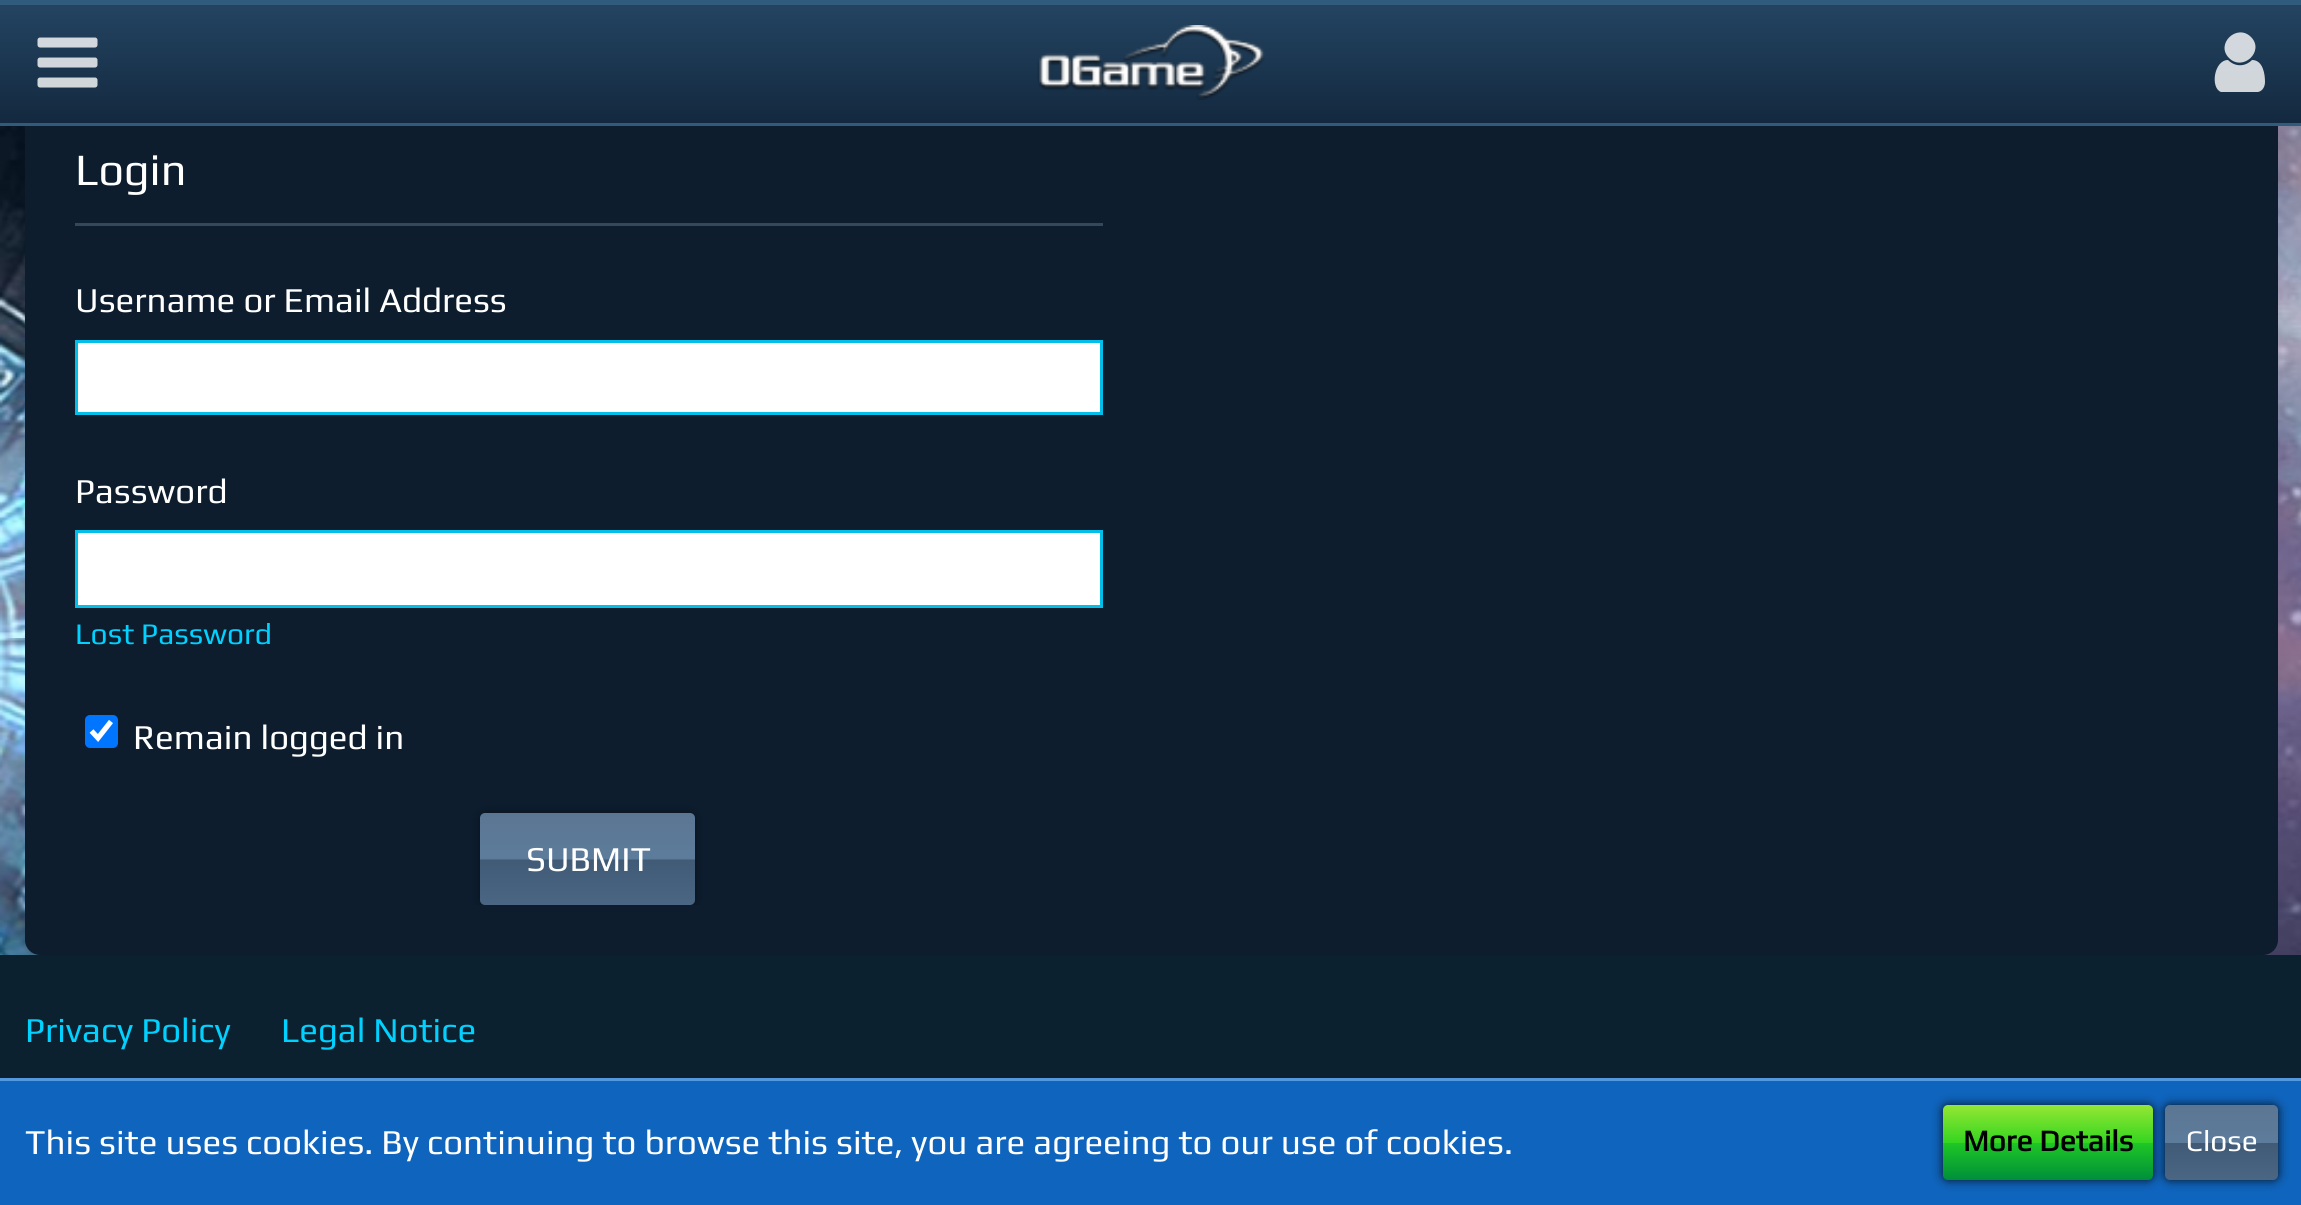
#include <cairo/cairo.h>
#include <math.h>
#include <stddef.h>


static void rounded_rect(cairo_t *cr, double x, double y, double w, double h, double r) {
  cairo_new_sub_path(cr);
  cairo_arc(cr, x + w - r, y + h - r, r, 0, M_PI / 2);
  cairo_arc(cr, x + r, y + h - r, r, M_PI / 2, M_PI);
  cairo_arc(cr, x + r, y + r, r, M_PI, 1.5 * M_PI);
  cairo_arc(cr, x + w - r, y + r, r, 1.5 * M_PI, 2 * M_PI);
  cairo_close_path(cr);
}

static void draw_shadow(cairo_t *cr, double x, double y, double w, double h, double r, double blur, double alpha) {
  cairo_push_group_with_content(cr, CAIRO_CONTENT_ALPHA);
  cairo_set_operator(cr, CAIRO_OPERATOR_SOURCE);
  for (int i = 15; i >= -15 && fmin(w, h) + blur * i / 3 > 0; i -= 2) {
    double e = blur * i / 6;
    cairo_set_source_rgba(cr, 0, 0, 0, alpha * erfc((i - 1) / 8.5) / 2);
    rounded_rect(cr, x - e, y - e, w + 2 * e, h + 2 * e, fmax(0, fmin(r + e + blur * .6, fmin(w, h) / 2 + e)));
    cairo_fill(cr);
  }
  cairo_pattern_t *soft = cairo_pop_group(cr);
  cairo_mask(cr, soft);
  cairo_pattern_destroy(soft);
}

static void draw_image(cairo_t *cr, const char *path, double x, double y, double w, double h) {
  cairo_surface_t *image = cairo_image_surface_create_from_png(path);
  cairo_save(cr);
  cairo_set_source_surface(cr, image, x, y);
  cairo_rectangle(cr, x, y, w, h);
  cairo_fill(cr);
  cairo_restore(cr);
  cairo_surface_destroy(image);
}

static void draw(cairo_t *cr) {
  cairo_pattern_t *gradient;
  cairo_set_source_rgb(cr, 1, 1, 1);
  cairo_paint(cr);
  draw_image(cr, "images/1.png", 0, 126, 2301, 829);
  cairo_set_source_rgb(cr, 13 / 255.0, 29 / 255.0, 46 / 255.0);
  rounded_rect(cr, 25, -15, 2253, 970, 15);
  cairo_fill(cr);
  gradient = cairo_pattern_create_linear(1151, 125, 1151, 0);
  cairo_pattern_add_color_stop_rgba(gradient, 0, 19 / 255.0, 40 / 255.0, 62 / 255.0, 1);
  cairo_pattern_add_color_stop_rgba(gradient, 1, 36 / 255.0, 69 / 255.0, 99 / 255.0, 1);
  cairo_set_source(cr, gradient);
  cairo_pattern_destroy(gradient);
  cairo_rectangle(cr, 0, 5, 2301, 118);
  cairo_fill(cr);
  cairo_set_source_rgb(cr, 49 / 255.0, 91 / 255.0, 125 / 255.0);
  cairo_rectangle(cr, 0, 123, 2301, 3);
  cairo_fill(cr);
  cairo_rectangle(cr, 0, 0, 2301, 5);
  cairo_fill(cr);
  draw_image(cr, "images/2.png", 37, 37, 61, 51);
  cairo_set_source_rgba(cr, 1, 1, 1, 0.8);
  cairo_new_path(cr);
  cairo_move_to(cr, 2265, 82);
  cairo_curve_to(cr, 2265, 86, 2263, 91, 2258, 92);
  cairo_line_to(cr, 2229, 92);
  cairo_line_to(cr, 2221, 92);
  cairo_curve_to(cr, 2210, 88, 2214, 60, 2228, 60);
  cairo_curve_to(cr, 2235, 67, 2245, 67, 2252, 60);
  cairo_curve_to(cr, 2263, 60, 2265, 74, 2265, 82);
  cairo_close_path(cr);
  cairo_move_to(cr, 2251, 37);
  cairo_curve_to(cr, 2265, 51, 2243, 72, 2229, 58);
  cairo_curve_to(cr, 2215, 44, 2237, 23, 2251, 37);
  cairo_close_path(cr);
  cairo_fill(cr);
  draw_image(cr, "images/3.png", 1037, 25, 228, 75);
  cairo_set_source_rgb(cr, 51 / 255.0, 72 / 255.0, 89 / 255.0);
  cairo_rectangle(cr, 75, 223, 1028, 3);
  cairo_fill(cr);
  cairo_set_source_rgb(cr, 1, 1, 1);
  cairo_rectangle(cr, 76.5, 341.5, 1025, 72);
  cairo_fill_preserve(cr);
  cairo_set_source_rgb(cr, 1 / 255.0, 191 / 255.0, 233 / 255.0);
  cairo_set_line_width(cr, 3);
  cairo_stroke(cr);
  cairo_set_source_rgb(cr, 1, 1, 1);
  cairo_rectangle(cr, 76.5, 531.5, 1025, 75);
  cairo_fill_preserve(cr);
  cairo_set_source_rgb(cr, 1 / 255.0, 191 / 255.0, 233 / 255.0);
  cairo_stroke(cr);
  cairo_set_source_rgb(cr, 0, 117 / 255.0, 1);
  rounded_rect(cr, 85, 715, 33, 33, 5);
  cairo_fill(cr);
  cairo_new_path(cr);
  cairo_move_to(cr, 91.5, 731);
  cairo_line_to(cr, 98, 738);
  cairo_line_to(cr, 111, 721.5);
  cairo_set_source_rgb(cr, 1, 1, 1);
  cairo_set_line_width(cr, 5.2);
  cairo_stroke(cr);
  cairo_save(cr);
  cairo_rectangle(cr, 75, 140, 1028, 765);
  cairo_clip(cr);
  cairo_set_source_rgb(cr, 8 / 255.0, 17 / 255.0, 28 / 255.0);
  draw_shadow(cr, 480, 813, 215, 92, 5, 5, 1);
  cairo_restore(cr);
  gradient = cairo_pattern_create_linear(588, 905, 588, 813);
  cairo_pattern_add_color_stop_rgba(gradient, 0, 74 / 255.0, 102 / 255.0, 130 / 255.0, 1);
  cairo_pattern_add_color_stop_rgba(gradient, 0.49, 65 / 255.0, 91 / 255.0, 119 / 255.0, 1);
  cairo_pattern_add_color_stop_rgba(gradient, 0.5, 93 / 255.0, 124 / 255.0, 155 / 255.0, 1);
  cairo_pattern_add_color_stop_rgba(gradient, 1, 91 / 255.0, 118 / 255.0, 147 / 255.0, 1);
  cairo_set_source(cr, gradient);
  cairo_pattern_destroy(gradient);
  rounded_rect(cr, 480, 813, 215, 92, 5);
  cairo_fill(cr);
  cairo_set_source_rgb(cr, 12 / 255.0, 33 / 255.0, 48 / 255.0);
  cairo_rectangle(cr, 0, 955, 2301, 123);
  cairo_fill(cr);
  cairo_set_source_rgb(cr, 15 / 255.0, 100 / 255.0, 189 / 255.0);
  cairo_rectangle(cr, 0, 1081, 2301, 124);
  cairo_fill(cr);
  cairo_set_source_rgb(cr, 84 / 255.0, 152 / 255.0, 222 / 255.0);
  cairo_rectangle(cr, 0, 1078, 2301, 3);
  cairo_fill(cr);
  cairo_set_source_rgb(cr, 8 / 255.0, 17 / 255.0, 28 / 255.0);
  draw_shadow(cr, 1943, 1105, 210, 75, 5, 5, 1);
  gradient = cairo_pattern_create_linear(2048, 1105, 2048, 1180);
  cairo_pattern_add_color_stop_rgba(gradient, 0, 148 / 255.0, 231 / 255.0, 51 / 255.0, 1);
  cairo_pattern_add_color_stop_rgba(gradient, 0.5, 54 / 255.0, 213 / 255.0, 33 / 255.0, 1);
  cairo_pattern_add_color_stop_rgba(gradient, 0.51, 30 / 255.0, 199 / 255.0, 37 / 255.0, 1);
  cairo_pattern_add_color_stop_rgba(gradient, 1, 0, 142 / 255.0, 58 / 255.0, 1);
  cairo_set_source(cr, gradient);
  cairo_pattern_destroy(gradient);
  rounded_rect(cr, 1943, 1105, 210, 75, 5);
  cairo_fill(cr);
  cairo_set_source_rgb(cr, 8 / 255.0, 17 / 255.0, 28 / 255.0);
  draw_shadow(cr, 2165, 1105, 113, 75, 5, 5, 1);
  gradient = cairo_pattern_create_linear(2221, 1180, 2221, 1105);
  cairo_pattern_add_color_stop_rgba(gradient, 0, 74 / 255.0, 102 / 255.0, 130 / 255.0, 1);
  cairo_pattern_add_color_stop_rgba(gradient, 0.49, 65 / 255.0, 91 / 255.0, 119 / 255.0, 1);
  cairo_pattern_add_color_stop_rgba(gradient, 0.5, 93 / 255.0, 124 / 255.0, 155 / 255.0, 1);
  cairo_pattern_add_color_stop_rgba(gradient, 1, 91 / 255.0, 118 / 255.0, 147 / 255.0, 1);
  cairo_set_source(cr, gradient);
  cairo_pattern_destroy(gradient);
  rounded_rect(cr, 2165, 1105, 113, 75, 5);
  cairo_fill(cr);
  cairo_select_font_face(cr, "Play", CAIRO_FONT_SLANT_NORMAL, CAIRO_FONT_WEIGHT_NORMAL);
  cairo_set_font_size(cr, 45);
  cairo_set_source_rgb(cr, 1, 1, 1);
  cairo_move_to(cr, 75, 185);
  cairo_show_text(cr, "Login");
  cairo_set_font_size(cr, 35);
  cairo_move_to(cr, 75, 312);
  cairo_show_text(cr, "Username or Email Address");
  cairo_move_to(cr, 75, 503);
  cairo_show_text(cr, "Password");
  cairo_set_font_size(cr, 30);
  cairo_set_source_rgb(cr, 0, 209 / 255.0, 1);
  cairo_move_to(cr, 75, 644);
  cairo_show_text(cr, "Lost Password");
  cairo_set_font_size(cr, 35);
  cairo_set_source_rgb(cr, 1, 1, 1);
  cairo_move_to(cr, 133, 749);
  cairo_show_text(cr, "Remain logged in");
  cairo_move_to(cr, 526, 871);
  cairo_show_text(cr, "SUBMIT");
  cairo_set_source_rgb(cr, 0, 209 / 255.0, 1);
  cairo_move_to(cr, 25, 1042);
  cairo_show_text(cr, "Privacy Policy");
  cairo_move_to(cr, 281, 1042);
  cairo_show_text(cr, "Legal Notice");
  cairo_set_source_rgb(cr, 1, 1, 1);
  cairo_move_to(cr, 25, 1154);
  cairo_show_text(cr, "This site uses cookies. By continuing to browse this site, you are agreeing to our use of cookies.");
  cairo_select_font_face(cr, "Play", CAIRO_FONT_SLANT_NORMAL, CAIRO_FONT_WEIGHT_BOLD);
  cairo_set_font_size(cr, 30);
  cairo_set_source_rgb(cr, 0, 0, 0);
  cairo_move_to(cr, 1963, 1151);
  cairo_show_text(cr, "More Details");
  cairo_select_font_face(cr, "Play", CAIRO_FONT_SLANT_NORMAL, CAIRO_FONT_WEIGHT_NORMAL);
  cairo_set_source_rgb(cr, 1, 1, 1);
  cairo_move_to(cr, 2186, 1151);
  cairo_show_text(cr, "Close");
}

int main(void) {
  cairo_surface_t *surface = cairo_image_surface_create(CAIRO_FORMAT_RGB24, 2301, 1205);
  cairo_t *cr = cairo_create(surface);
  cairo_font_options_t *options = cairo_font_options_create();
  cairo_font_options_set_hint_metrics(options, CAIRO_HINT_METRICS_OFF);
  cairo_font_options_set_hint_style(options, CAIRO_HINT_STYLE_NONE);
  cairo_set_font_options(cr, options);
  cairo_set_miter_limit(cr, 4);
  draw(cr);
  cairo_surface_write_to_png(surface, "out.png");
  cairo_font_options_destroy(options);
  cairo_destroy(cr);
  cairo_surface_destroy(surface);
  return 0;
}
